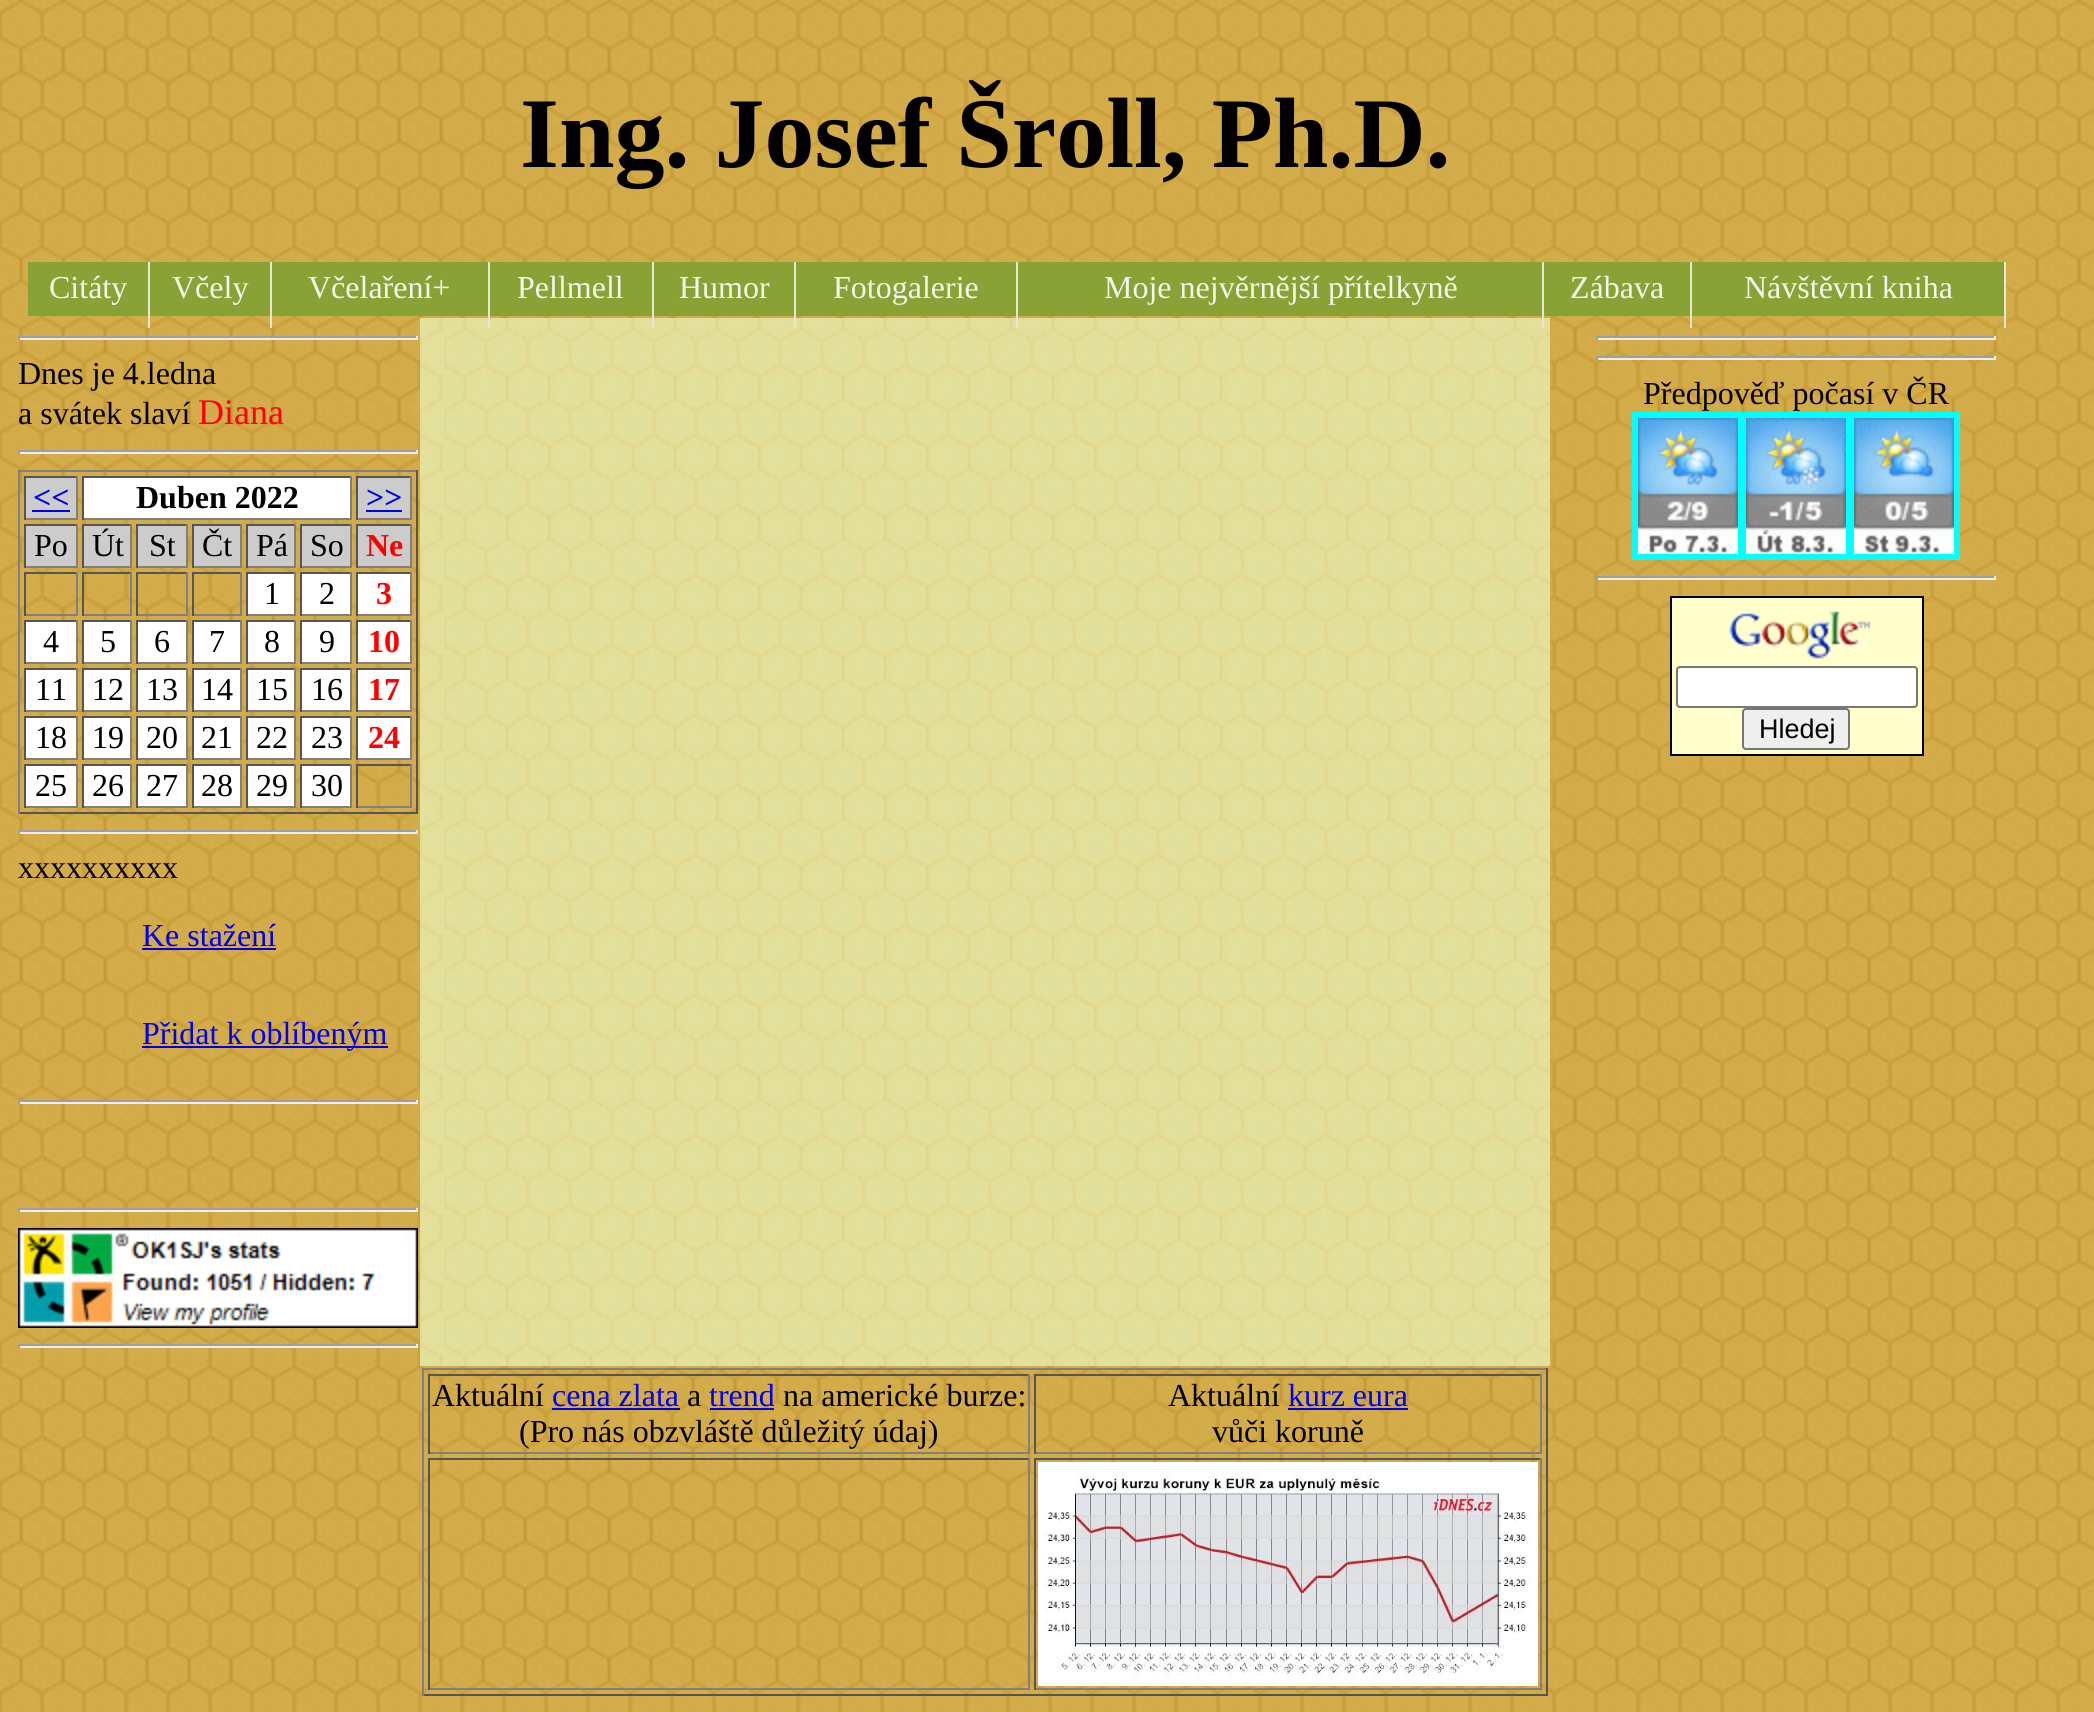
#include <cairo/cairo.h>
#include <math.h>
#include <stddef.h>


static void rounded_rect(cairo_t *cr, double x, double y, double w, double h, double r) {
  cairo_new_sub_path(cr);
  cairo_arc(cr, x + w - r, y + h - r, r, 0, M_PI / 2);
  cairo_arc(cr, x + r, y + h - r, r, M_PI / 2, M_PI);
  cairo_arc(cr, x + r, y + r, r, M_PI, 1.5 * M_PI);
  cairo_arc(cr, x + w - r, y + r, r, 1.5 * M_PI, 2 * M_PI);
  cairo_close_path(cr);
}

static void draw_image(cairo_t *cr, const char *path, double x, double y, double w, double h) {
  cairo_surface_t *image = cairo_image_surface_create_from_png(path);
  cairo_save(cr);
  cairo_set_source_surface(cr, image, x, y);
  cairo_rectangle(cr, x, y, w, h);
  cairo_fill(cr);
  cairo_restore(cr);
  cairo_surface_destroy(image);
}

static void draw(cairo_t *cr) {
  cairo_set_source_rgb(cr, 1, 1, 1);
  cairo_paint(cr);
  draw_image(cr, "images/1.png", 0, 0, 2094, 1712);
  cairo_set_source_rgb(cr, 137 / 255.0, 162 / 255.0, 54 / 255.0);
  cairo_rectangle(cr, 28, 262, 1976, 54);
  cairo_fill(cr);
  cairo_set_source_rgb(cr, 229 / 255.0, 231 / 255.0, 210 / 255.0);
  cairo_rectangle(cr, 148, 262, 2, 66);
  cairo_fill(cr);
  cairo_rectangle(cr, 270, 262, 2, 66);
  cairo_fill(cr);
  draw_image(cr, "images/4.png", 444, 318, 1106, 1048);
  cairo_rectangle(cr, 488, 262, 2, 66);
  cairo_fill(cr);
  cairo_rectangle(cr, 652, 262, 2, 66);
  cairo_fill(cr);
  cairo_rectangle(cr, 794, 262, 2, 66);
  cairo_fill(cr);
  cairo_rectangle(cr, 1016, 262, 2, 66);
  cairo_fill(cr);
  cairo_rectangle(cr, 1542, 262, 2, 66);
  cairo_fill(cr);
  cairo_rectangle(cr, 1690, 262, 2, 66);
  cairo_fill(cr);
  cairo_rectangle(cr, 2004, 262, 2, 66);
  cairo_fill(cr);
  cairo_set_source_rgb(cr, 159 / 255.0, 159 / 255.0, 159 / 255.0);
  cairo_rectangle(cr, 18, 336, 400, 2);
  cairo_fill(cr);
  cairo_set_source_rgb(cr, 238 / 255.0, 238 / 255.0, 238 / 255.0);
  cairo_rectangle(cr, 416, 336, 2, 4);
  cairo_fill(cr);
  cairo_rectangle(cr, 18, 338, 400, 2);
  cairo_fill(cr);
  cairo_set_source_rgb(cr, 159 / 255.0, 159 / 255.0, 159 / 255.0);
  cairo_rectangle(cr, 18, 336, 2, 4);
  cairo_fill(cr);
  cairo_rectangle(cr, 18, 450, 400, 2);
  cairo_fill(cr);
  cairo_set_source_rgb(cr, 238 / 255.0, 238 / 255.0, 238 / 255.0);
  cairo_rectangle(cr, 416, 450, 2, 4);
  cairo_fill(cr);
  cairo_rectangle(cr, 18, 452, 400, 2);
  cairo_fill(cr);
  cairo_set_source_rgb(cr, 159 / 255.0, 159 / 255.0, 159 / 255.0);
  cairo_rectangle(cr, 18, 450, 2, 4);
  cairo_fill(cr);
  cairo_set_source_rgb(cr, 128 / 255.0, 128 / 255.0, 128 / 255.0);
  cairo_rectangle(cr, 18, 470, 400, 2);
  cairo_fill(cr);
  cairo_set_source_rgb(cr, 85 / 255.0, 85 / 255.0, 85 / 255.0);
  cairo_rectangle(cr, 416, 470, 2, 344);
  cairo_fill(cr);
  cairo_rectangle(cr, 18, 812, 400, 2);
  cairo_fill(cr);
  cairo_set_source_rgb(cr, 128 / 255.0, 128 / 255.0, 128 / 255.0);
  cairo_rectangle(cr, 18, 470, 2, 344);
  cairo_fill(cr);
  cairo_set_source_rgb(cr, 204 / 255.0, 204 / 255.0, 204 / 255.0);
  cairo_rectangle(cr, 26, 478, 50, 40);
  cairo_fill(cr);
  cairo_set_source_rgb(cr, 85 / 255.0, 85 / 255.0, 85 / 255.0);
  cairo_rectangle(cr, 24, 476, 54, 2);
  cairo_fill(cr);
  cairo_set_source_rgb(cr, 128 / 255.0, 128 / 255.0, 128 / 255.0);
  cairo_rectangle(cr, 76, 476, 2, 44);
  cairo_fill(cr);
  cairo_rectangle(cr, 24, 518, 54, 2);
  cairo_fill(cr);
  cairo_set_source_rgb(cr, 85 / 255.0, 85 / 255.0, 85 / 255.0);
  cairo_rectangle(cr, 24, 476, 2, 44);
  cairo_fill(cr);
  cairo_set_source_rgb(cr, 0, 0, 238 / 255.0);
  cairo_rectangle(cr, 32, 510, 38, 2);
  cairo_fill(cr);
  cairo_set_source_rgb(cr, 1, 1, 1);
  cairo_rectangle(cr, 84, 478, 266, 40);
  cairo_fill(cr);
  cairo_set_source_rgb(cr, 85 / 255.0, 85 / 255.0, 85 / 255.0);
  cairo_rectangle(cr, 82, 476, 270, 2);
  cairo_fill(cr);
  cairo_set_source_rgb(cr, 128 / 255.0, 128 / 255.0, 128 / 255.0);
  cairo_rectangle(cr, 350, 476, 2, 44);
  cairo_fill(cr);
  cairo_rectangle(cr, 82, 518, 270, 2);
  cairo_fill(cr);
  cairo_set_source_rgb(cr, 85 / 255.0, 85 / 255.0, 85 / 255.0);
  cairo_rectangle(cr, 82, 476, 2, 44);
  cairo_fill(cr);
  cairo_set_source_rgb(cr, 204 / 255.0, 204 / 255.0, 204 / 255.0);
  cairo_rectangle(cr, 358, 478, 52, 40);
  cairo_fill(cr);
  cairo_set_source_rgb(cr, 85 / 255.0, 85 / 255.0, 85 / 255.0);
  cairo_rectangle(cr, 356, 476, 56, 2);
  cairo_fill(cr);
  cairo_set_source_rgb(cr, 128 / 255.0, 128 / 255.0, 128 / 255.0);
  cairo_rectangle(cr, 410, 476, 2, 44);
  cairo_fill(cr);
  cairo_rectangle(cr, 356, 518, 56, 2);
  cairo_fill(cr);
  cairo_set_source_rgb(cr, 85 / 255.0, 85 / 255.0, 85 / 255.0);
  cairo_rectangle(cr, 356, 476, 2, 44);
  cairo_fill(cr);
  cairo_set_source_rgb(cr, 0, 0, 238 / 255.0);
  cairo_rectangle(cr, 366, 510, 36, 2);
  cairo_fill(cr);
  cairo_set_source_rgb(cr, 204 / 255.0, 204 / 255.0, 204 / 255.0);
  cairo_rectangle(cr, 26, 526, 50, 40);
  cairo_fill(cr);
  cairo_set_source_rgb(cr, 85 / 255.0, 85 / 255.0, 85 / 255.0);
  cairo_rectangle(cr, 24, 524, 54, 2);
  cairo_fill(cr);
  cairo_set_source_rgb(cr, 128 / 255.0, 128 / 255.0, 128 / 255.0);
  cairo_rectangle(cr, 76, 524, 2, 44);
  cairo_fill(cr);
  cairo_rectangle(cr, 24, 566, 54, 2);
  cairo_fill(cr);
  cairo_set_source_rgb(cr, 85 / 255.0, 85 / 255.0, 85 / 255.0);
  cairo_rectangle(cr, 24, 524, 2, 44);
  cairo_fill(cr);
  cairo_set_source_rgb(cr, 204 / 255.0, 204 / 255.0, 204 / 255.0);
  cairo_rectangle(cr, 84, 526, 46, 40);
  cairo_fill(cr);
  cairo_set_source_rgb(cr, 85 / 255.0, 85 / 255.0, 85 / 255.0);
  cairo_rectangle(cr, 82, 524, 50, 2);
  cairo_fill(cr);
  cairo_set_source_rgb(cr, 128 / 255.0, 128 / 255.0, 128 / 255.0);
  cairo_rectangle(cr, 130, 524, 2, 44);
  cairo_fill(cr);
  cairo_rectangle(cr, 82, 566, 50, 2);
  cairo_fill(cr);
  cairo_set_source_rgb(cr, 85 / 255.0, 85 / 255.0, 85 / 255.0);
  cairo_rectangle(cr, 82, 524, 2, 44);
  cairo_fill(cr);
  cairo_set_source_rgb(cr, 204 / 255.0, 204 / 255.0, 204 / 255.0);
  cairo_rectangle(cr, 138, 526, 48, 40);
  cairo_fill(cr);
  cairo_set_source_rgb(cr, 85 / 255.0, 85 / 255.0, 85 / 255.0);
  cairo_rectangle(cr, 136, 524, 52, 2);
  cairo_fill(cr);
  cairo_set_source_rgb(cr, 128 / 255.0, 128 / 255.0, 128 / 255.0);
  cairo_rectangle(cr, 186, 524, 2, 44);
  cairo_fill(cr);
  cairo_rectangle(cr, 136, 566, 52, 2);
  cairo_fill(cr);
  cairo_set_source_rgb(cr, 85 / 255.0, 85 / 255.0, 85 / 255.0);
  cairo_rectangle(cr, 136, 524, 2, 44);
  cairo_fill(cr);
  cairo_set_source_rgb(cr, 204 / 255.0, 204 / 255.0, 204 / 255.0);
  cairo_rectangle(cr, 194, 526, 46, 40);
  cairo_fill(cr);
  cairo_set_source_rgb(cr, 85 / 255.0, 85 / 255.0, 85 / 255.0);
  cairo_rectangle(cr, 192, 524, 50, 2);
  cairo_fill(cr);
  cairo_set_source_rgb(cr, 128 / 255.0, 128 / 255.0, 128 / 255.0);
  cairo_rectangle(cr, 240, 524, 2, 44);
  cairo_fill(cr);
  cairo_rectangle(cr, 192, 566, 50, 2);
  cairo_fill(cr);
  cairo_set_source_rgb(cr, 85 / 255.0, 85 / 255.0, 85 / 255.0);
  cairo_rectangle(cr, 192, 524, 2, 44);
  cairo_fill(cr);
  cairo_set_source_rgb(cr, 204 / 255.0, 204 / 255.0, 204 / 255.0);
  cairo_rectangle(cr, 248, 526, 46, 40);
  cairo_fill(cr);
  cairo_set_source_rgb(cr, 85 / 255.0, 85 / 255.0, 85 / 255.0);
  cairo_rectangle(cr, 246, 524, 50, 2);
  cairo_fill(cr);
  cairo_set_source_rgb(cr, 128 / 255.0, 128 / 255.0, 128 / 255.0);
  cairo_rectangle(cr, 294, 524, 2, 44);
  cairo_fill(cr);
  cairo_rectangle(cr, 246, 566, 50, 2);
  cairo_fill(cr);
  cairo_set_source_rgb(cr, 85 / 255.0, 85 / 255.0, 85 / 255.0);
  cairo_rectangle(cr, 246, 524, 2, 44);
  cairo_fill(cr);
  cairo_set_source_rgb(cr, 204 / 255.0, 204 / 255.0, 204 / 255.0);
  cairo_rectangle(cr, 302, 526, 48, 40);
  cairo_fill(cr);
  cairo_set_source_rgb(cr, 85 / 255.0, 85 / 255.0, 85 / 255.0);
  cairo_rectangle(cr, 300, 524, 52, 2);
  cairo_fill(cr);
  cairo_set_source_rgb(cr, 128 / 255.0, 128 / 255.0, 128 / 255.0);
  cairo_rectangle(cr, 350, 524, 2, 44);
  cairo_fill(cr);
  cairo_rectangle(cr, 300, 566, 52, 2);
  cairo_fill(cr);
  cairo_set_source_rgb(cr, 85 / 255.0, 85 / 255.0, 85 / 255.0);
  cairo_rectangle(cr, 300, 524, 2, 44);
  cairo_fill(cr);
  cairo_set_source_rgb(cr, 204 / 255.0, 204 / 255.0, 204 / 255.0);
  cairo_rectangle(cr, 358, 526, 52, 40);
  cairo_fill(cr);
  cairo_set_source_rgb(cr, 85 / 255.0, 85 / 255.0, 85 / 255.0);
  cairo_rectangle(cr, 356, 524, 56, 2);
  cairo_fill(cr);
  cairo_set_source_rgb(cr, 128 / 255.0, 128 / 255.0, 128 / 255.0);
  cairo_rectangle(cr, 410, 524, 2, 44);
  cairo_fill(cr);
  cairo_rectangle(cr, 356, 566, 56, 2);
  cairo_fill(cr);
  cairo_set_source_rgb(cr, 85 / 255.0, 85 / 255.0, 85 / 255.0);
  cairo_rectangle(cr, 356, 524, 2, 44);
  cairo_fill(cr);
  cairo_rectangle(cr, 24, 572, 54, 2);
  cairo_fill(cr);
  cairo_set_source_rgb(cr, 128 / 255.0, 128 / 255.0, 128 / 255.0);
  cairo_rectangle(cr, 76, 572, 2, 44);
  cairo_fill(cr);
  cairo_rectangle(cr, 24, 614, 54, 2);
  cairo_fill(cr);
  cairo_set_source_rgb(cr, 85 / 255.0, 85 / 255.0, 85 / 255.0);
  cairo_rectangle(cr, 24, 572, 2, 44);
  cairo_fill(cr);
  cairo_rectangle(cr, 82, 572, 50, 2);
  cairo_fill(cr);
  cairo_set_source_rgb(cr, 128 / 255.0, 128 / 255.0, 128 / 255.0);
  cairo_rectangle(cr, 130, 572, 2, 44);
  cairo_fill(cr);
  cairo_rectangle(cr, 82, 614, 50, 2);
  cairo_fill(cr);
  cairo_set_source_rgb(cr, 85 / 255.0, 85 / 255.0, 85 / 255.0);
  cairo_rectangle(cr, 82, 572, 2, 44);
  cairo_fill(cr);
  cairo_rectangle(cr, 136, 572, 52, 2);
  cairo_fill(cr);
  cairo_set_source_rgb(cr, 128 / 255.0, 128 / 255.0, 128 / 255.0);
  cairo_rectangle(cr, 186, 572, 2, 44);
  cairo_fill(cr);
  cairo_rectangle(cr, 136, 614, 52, 2);
  cairo_fill(cr);
  cairo_set_source_rgb(cr, 85 / 255.0, 85 / 255.0, 85 / 255.0);
  cairo_rectangle(cr, 136, 572, 2, 44);
  cairo_fill(cr);
  cairo_rectangle(cr, 192, 572, 50, 2);
  cairo_fill(cr);
  cairo_set_source_rgb(cr, 128 / 255.0, 128 / 255.0, 128 / 255.0);
  cairo_rectangle(cr, 240, 572, 2, 44);
  cairo_fill(cr);
  cairo_rectangle(cr, 192, 614, 50, 2);
  cairo_fill(cr);
  cairo_set_source_rgb(cr, 85 / 255.0, 85 / 255.0, 85 / 255.0);
  cairo_rectangle(cr, 192, 572, 2, 44);
  cairo_fill(cr);
  cairo_set_source_rgb(cr, 1, 1, 1);
  cairo_rectangle(cr, 248, 574, 46, 40);
  cairo_fill(cr);
  cairo_set_source_rgb(cr, 85 / 255.0, 85 / 255.0, 85 / 255.0);
  cairo_rectangle(cr, 246, 572, 50, 2);
  cairo_fill(cr);
  cairo_set_source_rgb(cr, 128 / 255.0, 128 / 255.0, 128 / 255.0);
  cairo_rectangle(cr, 294, 572, 2, 44);
  cairo_fill(cr);
  cairo_rectangle(cr, 246, 614, 50, 2);
  cairo_fill(cr);
  cairo_set_source_rgb(cr, 85 / 255.0, 85 / 255.0, 85 / 255.0);
  cairo_rectangle(cr, 246, 572, 2, 44);
  cairo_fill(cr);
  cairo_set_source_rgb(cr, 1, 1, 1);
  cairo_rectangle(cr, 302, 574, 48, 40);
  cairo_fill(cr);
  cairo_set_source_rgb(cr, 85 / 255.0, 85 / 255.0, 85 / 255.0);
  cairo_rectangle(cr, 300, 572, 52, 2);
  cairo_fill(cr);
  cairo_set_source_rgb(cr, 128 / 255.0, 128 / 255.0, 128 / 255.0);
  cairo_rectangle(cr, 350, 572, 2, 44);
  cairo_fill(cr);
  cairo_rectangle(cr, 300, 614, 52, 2);
  cairo_fill(cr);
  cairo_set_source_rgb(cr, 85 / 255.0, 85 / 255.0, 85 / 255.0);
  cairo_rectangle(cr, 300, 572, 2, 44);
  cairo_fill(cr);
  cairo_set_source_rgb(cr, 1, 1, 1);
  cairo_rectangle(cr, 358, 574, 52, 40);
  cairo_fill(cr);
  cairo_set_source_rgb(cr, 85 / 255.0, 85 / 255.0, 85 / 255.0);
  cairo_rectangle(cr, 356, 572, 56, 2);
  cairo_fill(cr);
  cairo_set_source_rgb(cr, 128 / 255.0, 128 / 255.0, 128 / 255.0);
  cairo_rectangle(cr, 410, 572, 2, 44);
  cairo_fill(cr);
  cairo_rectangle(cr, 356, 614, 56, 2);
  cairo_fill(cr);
  cairo_set_source_rgb(cr, 85 / 255.0, 85 / 255.0, 85 / 255.0);
  cairo_rectangle(cr, 356, 572, 2, 44);
  cairo_fill(cr);
  cairo_set_source_rgb(cr, 1, 1, 1);
  cairo_rectangle(cr, 26, 622, 50, 40);
  cairo_fill(cr);
  cairo_set_source_rgb(cr, 85 / 255.0, 85 / 255.0, 85 / 255.0);
  cairo_rectangle(cr, 24, 620, 54, 2);
  cairo_fill(cr);
  cairo_set_source_rgb(cr, 128 / 255.0, 128 / 255.0, 128 / 255.0);
  cairo_rectangle(cr, 76, 620, 2, 44);
  cairo_fill(cr);
  cairo_rectangle(cr, 24, 662, 54, 2);
  cairo_fill(cr);
  cairo_set_source_rgb(cr, 85 / 255.0, 85 / 255.0, 85 / 255.0);
  cairo_rectangle(cr, 24, 620, 2, 44);
  cairo_fill(cr);
  cairo_set_source_rgb(cr, 1, 1, 1);
  cairo_rectangle(cr, 84, 622, 46, 40);
  cairo_fill(cr);
  cairo_set_source_rgb(cr, 85 / 255.0, 85 / 255.0, 85 / 255.0);
  cairo_rectangle(cr, 82, 620, 50, 2);
  cairo_fill(cr);
  cairo_set_source_rgb(cr, 128 / 255.0, 128 / 255.0, 128 / 255.0);
  cairo_rectangle(cr, 130, 620, 2, 44);
  cairo_fill(cr);
  cairo_rectangle(cr, 82, 662, 50, 2);
  cairo_fill(cr);
  cairo_set_source_rgb(cr, 85 / 255.0, 85 / 255.0, 85 / 255.0);
  cairo_rectangle(cr, 82, 620, 2, 44);
  cairo_fill(cr);
  cairo_set_source_rgb(cr, 1, 1, 1);
  cairo_rectangle(cr, 138, 622, 48, 40);
  cairo_fill(cr);
  cairo_set_source_rgb(cr, 85 / 255.0, 85 / 255.0, 85 / 255.0);
  cairo_rectangle(cr, 136, 620, 52, 2);
  cairo_fill(cr);
  cairo_set_source_rgb(cr, 128 / 255.0, 128 / 255.0, 128 / 255.0);
  cairo_rectangle(cr, 186, 620, 2, 44);
  cairo_fill(cr);
  cairo_rectangle(cr, 136, 662, 52, 2);
  cairo_fill(cr);
  cairo_set_source_rgb(cr, 85 / 255.0, 85 / 255.0, 85 / 255.0);
  cairo_rectangle(cr, 136, 620, 2, 44);
  cairo_fill(cr);
  cairo_set_source_rgb(cr, 1, 1, 1);
  cairo_rectangle(cr, 194, 622, 46, 40);
  cairo_fill(cr);
  cairo_set_source_rgb(cr, 85 / 255.0, 85 / 255.0, 85 / 255.0);
  cairo_rectangle(cr, 192, 620, 50, 2);
  cairo_fill(cr);
  cairo_set_source_rgb(cr, 128 / 255.0, 128 / 255.0, 128 / 255.0);
  cairo_rectangle(cr, 240, 620, 2, 44);
  cairo_fill(cr);
  cairo_rectangle(cr, 192, 662, 50, 2);
  cairo_fill(cr);
  cairo_set_source_rgb(cr, 85 / 255.0, 85 / 255.0, 85 / 255.0);
  cairo_rectangle(cr, 192, 620, 2, 44);
  cairo_fill(cr);
  cairo_set_source_rgb(cr, 1, 1, 1);
  cairo_rectangle(cr, 248, 622, 46, 40);
  cairo_fill(cr);
  cairo_set_source_rgb(cr, 85 / 255.0, 85 / 255.0, 85 / 255.0);
  cairo_rectangle(cr, 246, 620, 50, 2);
  cairo_fill(cr);
  cairo_set_source_rgb(cr, 128 / 255.0, 128 / 255.0, 128 / 255.0);
  cairo_rectangle(cr, 294, 620, 2, 44);
  cairo_fill(cr);
  cairo_rectangle(cr, 246, 662, 50, 2);
  cairo_fill(cr);
  cairo_set_source_rgb(cr, 85 / 255.0, 85 / 255.0, 85 / 255.0);
  cairo_rectangle(cr, 246, 620, 2, 44);
  cairo_fill(cr);
  cairo_set_source_rgb(cr, 1, 1, 1);
  cairo_rectangle(cr, 302, 622, 48, 40);
  cairo_fill(cr);
  cairo_set_source_rgb(cr, 85 / 255.0, 85 / 255.0, 85 / 255.0);
  cairo_rectangle(cr, 300, 620, 52, 2);
  cairo_fill(cr);
  cairo_set_source_rgb(cr, 128 / 255.0, 128 / 255.0, 128 / 255.0);
  cairo_rectangle(cr, 350, 620, 2, 44);
  cairo_fill(cr);
  cairo_rectangle(cr, 300, 662, 52, 2);
  cairo_fill(cr);
  cairo_set_source_rgb(cr, 85 / 255.0, 85 / 255.0, 85 / 255.0);
  cairo_rectangle(cr, 300, 620, 2, 44);
  cairo_fill(cr);
  cairo_set_source_rgb(cr, 1, 1, 1);
  cairo_rectangle(cr, 358, 622, 52, 40);
  cairo_fill(cr);
  cairo_set_source_rgb(cr, 85 / 255.0, 85 / 255.0, 85 / 255.0);
  cairo_rectangle(cr, 356, 620, 56, 2);
  cairo_fill(cr);
  cairo_set_source_rgb(cr, 128 / 255.0, 128 / 255.0, 128 / 255.0);
  cairo_rectangle(cr, 410, 620, 2, 44);
  cairo_fill(cr);
  cairo_rectangle(cr, 356, 662, 56, 2);
  cairo_fill(cr);
  cairo_set_source_rgb(cr, 85 / 255.0, 85 / 255.0, 85 / 255.0);
  cairo_rectangle(cr, 356, 620, 2, 44);
  cairo_fill(cr);
  cairo_set_source_rgb(cr, 1, 1, 1);
  cairo_rectangle(cr, 26, 670, 50, 40);
  cairo_fill(cr);
  cairo_set_source_rgb(cr, 85 / 255.0, 85 / 255.0, 85 / 255.0);
  cairo_rectangle(cr, 24, 668, 54, 2);
  cairo_fill(cr);
  cairo_set_source_rgb(cr, 128 / 255.0, 128 / 255.0, 128 / 255.0);
  cairo_rectangle(cr, 76, 668, 2, 44);
  cairo_fill(cr);
  cairo_rectangle(cr, 24, 710, 54, 2);
  cairo_fill(cr);
  cairo_set_source_rgb(cr, 85 / 255.0, 85 / 255.0, 85 / 255.0);
  cairo_rectangle(cr, 24, 668, 2, 44);
  cairo_fill(cr);
  cairo_set_source_rgb(cr, 1, 1, 1);
  cairo_rectangle(cr, 84, 670, 46, 40);
  cairo_fill(cr);
  cairo_set_source_rgb(cr, 85 / 255.0, 85 / 255.0, 85 / 255.0);
  cairo_rectangle(cr, 82, 668, 50, 2);
  cairo_fill(cr);
  cairo_set_source_rgb(cr, 128 / 255.0, 128 / 255.0, 128 / 255.0);
  cairo_rectangle(cr, 130, 668, 2, 44);
  cairo_fill(cr);
  cairo_rectangle(cr, 82, 710, 50, 2);
  cairo_fill(cr);
  cairo_set_source_rgb(cr, 85 / 255.0, 85 / 255.0, 85 / 255.0);
  cairo_rectangle(cr, 82, 668, 2, 44);
  cairo_fill(cr);
  cairo_set_source_rgb(cr, 1, 1, 1);
  cairo_rectangle(cr, 138, 670, 48, 40);
  cairo_fill(cr);
  cairo_set_source_rgb(cr, 85 / 255.0, 85 / 255.0, 85 / 255.0);
  cairo_rectangle(cr, 136, 668, 52, 2);
  cairo_fill(cr);
  cairo_set_source_rgb(cr, 128 / 255.0, 128 / 255.0, 128 / 255.0);
  cairo_rectangle(cr, 186, 668, 2, 44);
  cairo_fill(cr);
  cairo_rectangle(cr, 136, 710, 52, 2);
  cairo_fill(cr);
  cairo_set_source_rgb(cr, 85 / 255.0, 85 / 255.0, 85 / 255.0);
  cairo_rectangle(cr, 136, 668, 2, 44);
  cairo_fill(cr);
  cairo_set_source_rgb(cr, 1, 1, 1);
  cairo_rectangle(cr, 194, 670, 46, 40);
  cairo_fill(cr);
  cairo_set_source_rgb(cr, 85 / 255.0, 85 / 255.0, 85 / 255.0);
  cairo_rectangle(cr, 192, 668, 50, 2);
  cairo_fill(cr);
  cairo_set_source_rgb(cr, 128 / 255.0, 128 / 255.0, 128 / 255.0);
  cairo_rectangle(cr, 240, 668, 2, 44);
  cairo_fill(cr);
  cairo_rectangle(cr, 192, 710, 50, 2);
  cairo_fill(cr);
  cairo_set_source_rgb(cr, 85 / 255.0, 85 / 255.0, 85 / 255.0);
  cairo_rectangle(cr, 192, 668, 2, 44);
  cairo_fill(cr);
  cairo_set_source_rgb(cr, 1, 1, 1);
  cairo_rectangle(cr, 248, 670, 46, 40);
  cairo_fill(cr);
  cairo_set_source_rgb(cr, 85 / 255.0, 85 / 255.0, 85 / 255.0);
  cairo_rectangle(cr, 246, 668, 50, 2);
  cairo_fill(cr);
  cairo_set_source_rgb(cr, 128 / 255.0, 128 / 255.0, 128 / 255.0);
  cairo_rectangle(cr, 294, 668, 2, 44);
  cairo_fill(cr);
  cairo_rectangle(cr, 246, 710, 50, 2);
  cairo_fill(cr);
  cairo_set_source_rgb(cr, 85 / 255.0, 85 / 255.0, 85 / 255.0);
  cairo_rectangle(cr, 246, 668, 2, 44);
  cairo_fill(cr);
  cairo_set_source_rgb(cr, 1, 1, 1);
  cairo_rectangle(cr, 302, 670, 48, 40);
  cairo_fill(cr);
  cairo_set_source_rgb(cr, 85 / 255.0, 85 / 255.0, 85 / 255.0);
  cairo_rectangle(cr, 300, 668, 52, 2);
  cairo_fill(cr);
  cairo_set_source_rgb(cr, 128 / 255.0, 128 / 255.0, 128 / 255.0);
  cairo_rectangle(cr, 350, 668, 2, 44);
  cairo_fill(cr);
  cairo_rectangle(cr, 300, 710, 52, 2);
  cairo_fill(cr);
  cairo_set_source_rgb(cr, 85 / 255.0, 85 / 255.0, 85 / 255.0);
  cairo_rectangle(cr, 300, 668, 2, 44);
  cairo_fill(cr);
  cairo_set_source_rgb(cr, 1, 1, 1);
  cairo_rectangle(cr, 358, 670, 52, 40);
  cairo_fill(cr);
  cairo_set_source_rgb(cr, 85 / 255.0, 85 / 255.0, 85 / 255.0);
  cairo_rectangle(cr, 356, 668, 56, 2);
  cairo_fill(cr);
  cairo_set_source_rgb(cr, 128 / 255.0, 128 / 255.0, 128 / 255.0);
  cairo_rectangle(cr, 410, 668, 2, 44);
  cairo_fill(cr);
  cairo_rectangle(cr, 356, 710, 56, 2);
  cairo_fill(cr);
  cairo_set_source_rgb(cr, 85 / 255.0, 85 / 255.0, 85 / 255.0);
  cairo_rectangle(cr, 356, 668, 2, 44);
  cairo_fill(cr);
  cairo_set_source_rgb(cr, 1, 1, 1);
  cairo_rectangle(cr, 26, 718, 50, 40);
  cairo_fill(cr);
  cairo_set_source_rgb(cr, 85 / 255.0, 85 / 255.0, 85 / 255.0);
  cairo_rectangle(cr, 24, 716, 54, 2);
  cairo_fill(cr);
  cairo_set_source_rgb(cr, 128 / 255.0, 128 / 255.0, 128 / 255.0);
  cairo_rectangle(cr, 76, 716, 2, 44);
  cairo_fill(cr);
  cairo_rectangle(cr, 24, 758, 54, 2);
  cairo_fill(cr);
  cairo_set_source_rgb(cr, 85 / 255.0, 85 / 255.0, 85 / 255.0);
  cairo_rectangle(cr, 24, 716, 2, 44);
  cairo_fill(cr);
  cairo_set_source_rgb(cr, 1, 1, 1);
  cairo_rectangle(cr, 84, 718, 46, 40);
  cairo_fill(cr);
  cairo_set_source_rgb(cr, 85 / 255.0, 85 / 255.0, 85 / 255.0);
  cairo_rectangle(cr, 82, 716, 50, 2);
  cairo_fill(cr);
  cairo_set_source_rgb(cr, 128 / 255.0, 128 / 255.0, 128 / 255.0);
  cairo_rectangle(cr, 130, 716, 2, 44);
  cairo_fill(cr);
  cairo_rectangle(cr, 82, 758, 50, 2);
  cairo_fill(cr);
  cairo_set_source_rgb(cr, 85 / 255.0, 85 / 255.0, 85 / 255.0);
  cairo_rectangle(cr, 82, 716, 2, 44);
  cairo_fill(cr);
  cairo_set_source_rgb(cr, 1, 1, 1);
  cairo_rectangle(cr, 138, 718, 48, 40);
  cairo_fill(cr);
  cairo_set_source_rgb(cr, 85 / 255.0, 85 / 255.0, 85 / 255.0);
  cairo_rectangle(cr, 136, 716, 52, 2);
  cairo_fill(cr);
  cairo_set_source_rgb(cr, 128 / 255.0, 128 / 255.0, 128 / 255.0);
  cairo_rectangle(cr, 186, 716, 2, 44);
  cairo_fill(cr);
  cairo_rectangle(cr, 136, 758, 52, 2);
  cairo_fill(cr);
  cairo_set_source_rgb(cr, 85 / 255.0, 85 / 255.0, 85 / 255.0);
  cairo_rectangle(cr, 136, 716, 2, 44);
  cairo_fill(cr);
  cairo_set_source_rgb(cr, 1, 1, 1);
  cairo_rectangle(cr, 194, 718, 46, 40);
  cairo_fill(cr);
  cairo_set_source_rgb(cr, 85 / 255.0, 85 / 255.0, 85 / 255.0);
  cairo_rectangle(cr, 192, 716, 50, 2);
  cairo_fill(cr);
  cairo_set_source_rgb(cr, 128 / 255.0, 128 / 255.0, 128 / 255.0);
  cairo_rectangle(cr, 240, 716, 2, 44);
  cairo_fill(cr);
  cairo_rectangle(cr, 192, 758, 50, 2);
  cairo_fill(cr);
  cairo_set_source_rgb(cr, 85 / 255.0, 85 / 255.0, 85 / 255.0);
  cairo_rectangle(cr, 192, 716, 2, 44);
  cairo_fill(cr);
  cairo_set_source_rgb(cr, 1, 1, 1);
  cairo_rectangle(cr, 248, 718, 46, 40);
  cairo_fill(cr);
  cairo_set_source_rgb(cr, 85 / 255.0, 85 / 255.0, 85 / 255.0);
  cairo_rectangle(cr, 246, 716, 50, 2);
  cairo_fill(cr);
  cairo_set_source_rgb(cr, 128 / 255.0, 128 / 255.0, 128 / 255.0);
  cairo_rectangle(cr, 294, 716, 2, 44);
  cairo_fill(cr);
  cairo_rectangle(cr, 246, 758, 50, 2);
  cairo_fill(cr);
  cairo_set_source_rgb(cr, 85 / 255.0, 85 / 255.0, 85 / 255.0);
  cairo_rectangle(cr, 246, 716, 2, 44);
  cairo_fill(cr);
  cairo_set_source_rgb(cr, 1, 1, 1);
  cairo_rectangle(cr, 302, 718, 48, 40);
  cairo_fill(cr);
  cairo_set_source_rgb(cr, 85 / 255.0, 85 / 255.0, 85 / 255.0);
  cairo_rectangle(cr, 300, 716, 52, 2);
  cairo_fill(cr);
  cairo_set_source_rgb(cr, 128 / 255.0, 128 / 255.0, 128 / 255.0);
  cairo_rectangle(cr, 350, 716, 2, 44);
  cairo_fill(cr);
  cairo_rectangle(cr, 300, 758, 52, 2);
  cairo_fill(cr);
  cairo_set_source_rgb(cr, 85 / 255.0, 85 / 255.0, 85 / 255.0);
  cairo_rectangle(cr, 300, 716, 2, 44);
  cairo_fill(cr);
  cairo_set_source_rgb(cr, 1, 1, 1);
  cairo_rectangle(cr, 358, 718, 52, 40);
  cairo_fill(cr);
  cairo_set_source_rgb(cr, 85 / 255.0, 85 / 255.0, 85 / 255.0);
  cairo_rectangle(cr, 356, 716, 56, 2);
  cairo_fill(cr);
  cairo_set_source_rgb(cr, 128 / 255.0, 128 / 255.0, 128 / 255.0);
  cairo_rectangle(cr, 410, 716, 2, 44);
  cairo_fill(cr);
  cairo_rectangle(cr, 356, 758, 56, 2);
  cairo_fill(cr);
  cairo_set_source_rgb(cr, 85 / 255.0, 85 / 255.0, 85 / 255.0);
  cairo_rectangle(cr, 356, 716, 2, 44);
  cairo_fill(cr);
  cairo_set_source_rgb(cr, 1, 1, 1);
  cairo_rectangle(cr, 26, 766, 50, 40);
  cairo_fill(cr);
  cairo_set_source_rgb(cr, 85 / 255.0, 85 / 255.0, 85 / 255.0);
  cairo_rectangle(cr, 24, 764, 54, 2);
  cairo_fill(cr);
  cairo_set_source_rgb(cr, 128 / 255.0, 128 / 255.0, 128 / 255.0);
  cairo_rectangle(cr, 76, 764, 2, 44);
  cairo_fill(cr);
  cairo_rectangle(cr, 24, 806, 54, 2);
  cairo_fill(cr);
  cairo_set_source_rgb(cr, 85 / 255.0, 85 / 255.0, 85 / 255.0);
  cairo_rectangle(cr, 24, 764, 2, 44);
  cairo_fill(cr);
  cairo_set_source_rgb(cr, 1, 1, 1);
  cairo_rectangle(cr, 84, 766, 46, 40);
  cairo_fill(cr);
  cairo_set_source_rgb(cr, 85 / 255.0, 85 / 255.0, 85 / 255.0);
  cairo_rectangle(cr, 82, 764, 50, 2);
  cairo_fill(cr);
  cairo_set_source_rgb(cr, 128 / 255.0, 128 / 255.0, 128 / 255.0);
  cairo_rectangle(cr, 130, 764, 2, 44);
  cairo_fill(cr);
  cairo_rectangle(cr, 82, 806, 50, 2);
  cairo_fill(cr);
  cairo_set_source_rgb(cr, 85 / 255.0, 85 / 255.0, 85 / 255.0);
  cairo_rectangle(cr, 82, 764, 2, 44);
  cairo_fill(cr);
  cairo_set_source_rgb(cr, 1, 1, 1);
  cairo_rectangle(cr, 138, 766, 48, 40);
  cairo_fill(cr);
  cairo_set_source_rgb(cr, 85 / 255.0, 85 / 255.0, 85 / 255.0);
  cairo_rectangle(cr, 136, 764, 52, 2);
  cairo_fill(cr);
  cairo_set_source_rgb(cr, 128 / 255.0, 128 / 255.0, 128 / 255.0);
  cairo_rectangle(cr, 186, 764, 2, 44);
  cairo_fill(cr);
  cairo_rectangle(cr, 136, 806, 52, 2);
  cairo_fill(cr);
  cairo_set_source_rgb(cr, 85 / 255.0, 85 / 255.0, 85 / 255.0);
  cairo_rectangle(cr, 136, 764, 2, 44);
  cairo_fill(cr);
  cairo_set_source_rgb(cr, 1, 1, 1);
  cairo_rectangle(cr, 194, 766, 46, 40);
  cairo_fill(cr);
  cairo_set_source_rgb(cr, 85 / 255.0, 85 / 255.0, 85 / 255.0);
  cairo_rectangle(cr, 192, 764, 50, 2);
  cairo_fill(cr);
  cairo_set_source_rgb(cr, 128 / 255.0, 128 / 255.0, 128 / 255.0);
  cairo_rectangle(cr, 240, 764, 2, 44);
  cairo_fill(cr);
  cairo_rectangle(cr, 192, 806, 50, 2);
  cairo_fill(cr);
  cairo_set_source_rgb(cr, 85 / 255.0, 85 / 255.0, 85 / 255.0);
  cairo_rectangle(cr, 192, 764, 2, 44);
  cairo_fill(cr);
  cairo_set_source_rgb(cr, 1, 1, 1);
  cairo_rectangle(cr, 248, 766, 46, 40);
  cairo_fill(cr);
  cairo_set_source_rgb(cr, 85 / 255.0, 85 / 255.0, 85 / 255.0);
  cairo_rectangle(cr, 246, 764, 50, 2);
  cairo_fill(cr);
  cairo_set_source_rgb(cr, 128 / 255.0, 128 / 255.0, 128 / 255.0);
  cairo_rectangle(cr, 294, 764, 2, 44);
  cairo_fill(cr);
  cairo_rectangle(cr, 246, 806, 50, 2);
  cairo_fill(cr);
  cairo_set_source_rgb(cr, 85 / 255.0, 85 / 255.0, 85 / 255.0);
  cairo_rectangle(cr, 246, 764, 2, 44);
  cairo_fill(cr);
  cairo_set_source_rgb(cr, 1, 1, 1);
  cairo_rectangle(cr, 302, 766, 48, 40);
  cairo_fill(cr);
  cairo_set_source_rgb(cr, 85 / 255.0, 85 / 255.0, 85 / 255.0);
  cairo_rectangle(cr, 300, 764, 52, 2);
  cairo_fill(cr);
  cairo_set_source_rgb(cr, 128 / 255.0, 128 / 255.0, 128 / 255.0);
  cairo_rectangle(cr, 350, 764, 2, 44);
  cairo_fill(cr);
  cairo_rectangle(cr, 300, 806, 52, 2);
  cairo_fill(cr);
  cairo_set_source_rgb(cr, 85 / 255.0, 85 / 255.0, 85 / 255.0);
  cairo_rectangle(cr, 300, 764, 2, 44);
  cairo_fill(cr);
  cairo_rectangle(cr, 356, 764, 56, 2);
  cairo_fill(cr);
  cairo_set_source_rgb(cr, 128 / 255.0, 128 / 255.0, 128 / 255.0);
  cairo_rectangle(cr, 410, 764, 2, 44);
  cairo_fill(cr);
  cairo_rectangle(cr, 356, 806, 56, 2);
  cairo_fill(cr);
  cairo_set_source_rgb(cr, 85 / 255.0, 85 / 255.0, 85 / 255.0);
  cairo_rectangle(cr, 356, 764, 2, 44);
  cairo_fill(cr);
  cairo_set_source_rgb(cr, 159 / 255.0, 159 / 255.0, 159 / 255.0);
  cairo_rectangle(cr, 18, 830, 400, 2);
  cairo_fill(cr);
  cairo_set_source_rgb(cr, 238 / 255.0, 238 / 255.0, 238 / 255.0);
  cairo_rectangle(cr, 416, 830, 2, 4);
  cairo_fill(cr);
  cairo_rectangle(cr, 18, 832, 400, 2);
  cairo_fill(cr);
  cairo_set_source_rgb(cr, 159 / 255.0, 159 / 255.0, 159 / 255.0);
  cairo_rectangle(cr, 18, 830, 2, 4);
  cairo_fill(cr);
  cairo_set_source_rgb(cr, 0, 0, 238 / 255.0);
  cairo_rectangle(cr, 142, 948, 134, 2);
  cairo_fill(cr);
  cairo_rectangle(cr, 142, 1046, 246, 2);
  cairo_fill(cr);
  cairo_set_source_rgb(cr, 159 / 255.0, 159 / 255.0, 159 / 255.0);
  cairo_rectangle(cr, 18, 1100, 400, 2);
  cairo_fill(cr);
  cairo_set_source_rgb(cr, 238 / 255.0, 238 / 255.0, 238 / 255.0);
  cairo_rectangle(cr, 416, 1100, 2, 4);
  cairo_fill(cr);
  cairo_rectangle(cr, 18, 1102, 400, 2);
  cairo_fill(cr);
  cairo_set_source_rgb(cr, 159 / 255.0, 159 / 255.0, 159 / 255.0);
  cairo_rectangle(cr, 18, 1100, 2, 4);
  cairo_fill(cr);
  cairo_rectangle(cr, 18, 1208, 400, 2);
  cairo_fill(cr);
  cairo_set_source_rgb(cr, 238 / 255.0, 238 / 255.0, 238 / 255.0);
  cairo_rectangle(cr, 416, 1208, 2, 4);
  cairo_fill(cr);
  cairo_rectangle(cr, 18, 1210, 400, 2);
  cairo_fill(cr);
  cairo_set_source_rgb(cr, 159 / 255.0, 159 / 255.0, 159 / 255.0);
  cairo_rectangle(cr, 18, 1208, 2, 4);
  cairo_fill(cr);
  draw_image(cr, "images/2.png", 18, 1228, 400, 100);
  cairo_rectangle(cr, 18, 1344, 400, 2);
  cairo_fill(cr);
  cairo_set_source_rgb(cr, 238 / 255.0, 238 / 255.0, 238 / 255.0);
  cairo_rectangle(cr, 416, 1344, 2, 4);
  cairo_fill(cr);
  cairo_rectangle(cr, 18, 1346, 400, 2);
  cairo_fill(cr);
  cairo_set_source_rgb(cr, 159 / 255.0, 159 / 255.0, 159 / 255.0);
  cairo_rectangle(cr, 18, 1344, 2, 4);
  cairo_fill(cr);
  draw_image(cr, "images/3.png", 420, 318, 24, 1048);
  cairo_rectangle(cr, 1596, 336, 400, 2);
  cairo_fill(cr);
  cairo_set_source_rgb(cr, 238 / 255.0, 238 / 255.0, 238 / 255.0);
  cairo_rectangle(cr, 1994, 336, 2, 4);
  cairo_fill(cr);
  cairo_rectangle(cr, 1596, 338, 400, 2);
  cairo_fill(cr);
  cairo_set_source_rgb(cr, 159 / 255.0, 159 / 255.0, 159 / 255.0);
  cairo_rectangle(cr, 1596, 336, 2, 4);
  cairo_fill(cr);
  cairo_rectangle(cr, 1596, 356, 400, 2);
  cairo_fill(cr);
  cairo_set_source_rgb(cr, 238 / 255.0, 238 / 255.0, 238 / 255.0);
  cairo_rectangle(cr, 1994, 356, 2, 4);
  cairo_fill(cr);
  cairo_rectangle(cr, 1596, 358, 400, 2);
  cairo_fill(cr);
  cairo_set_source_rgb(cr, 159 / 255.0, 159 / 255.0, 159 / 255.0);
  cairo_rectangle(cr, 1596, 356, 2, 4);
  cairo_fill(cr);
  cairo_set_source_rgb(cr, 0, 1, 1);
  cairo_rectangle(cr, 1632, 412, 328, 148);
  cairo_fill(cr);
  draw_image(cr, "images/5.png", 1638, 418, 100, 136);
  draw_image(cr, "images/6.png", 1746, 418, 100, 136);
  draw_image(cr, "images/7.png", 1854, 418, 100, 136);
  cairo_set_source_rgb(cr, 159 / 255.0, 159 / 255.0, 159 / 255.0);
  cairo_rectangle(cr, 1596, 576, 400, 2);
  cairo_fill(cr);
  cairo_set_source_rgb(cr, 238 / 255.0, 238 / 255.0, 238 / 255.0);
  cairo_rectangle(cr, 1994, 576, 2, 4);
  cairo_fill(cr);
  cairo_rectangle(cr, 1596, 578, 400, 2);
  cairo_fill(cr);
  cairo_set_source_rgb(cr, 159 / 255.0, 159 / 255.0, 159 / 255.0);
  cairo_rectangle(cr, 1596, 576, 2, 4);
  cairo_fill(cr);
  cairo_set_source_rgb(cr, 0, 0, 0);
  cairo_rectangle(cr, 1670, 596, 254, 160);
  cairo_fill(cr);
  cairo_set_source_rgb(cr, 1, 1, 204 / 255.0);
  cairo_rectangle(cr, 1672, 598, 250, 156);
  cairo_fill(cr);
  draw_image(cr, "images/8.png", 1729, 611, 142, 48);
  cairo_set_source_rgb(cr, 1, 1, 1);
  rounded_rect(cr, 1677, 667, 240, 40, 3);
  cairo_fill_preserve(cr);
  cairo_set_source_rgb(cr, 118 / 255.0, 118 / 255.0, 118 / 255.0);
  cairo_stroke(cr);
  cairo_set_source_rgb(cr, 239 / 255.0, 239 / 255.0, 239 / 255.0);
  rounded_rect(cr, 1743, 709, 106, 40, 3);
  cairo_fill_preserve(cr);
  cairo_set_source_rgb(cr, 118 / 255.0, 118 / 255.0, 118 / 255.0);
  cairo_stroke(cr);
  cairo_set_source_rgb(cr, 128 / 255.0, 128 / 255.0, 128 / 255.0);
  cairo_rectangle(cr, 422, 1368, 1126, 2);
  cairo_fill(cr);
  cairo_set_source_rgb(cr, 85 / 255.0, 85 / 255.0, 85 / 255.0);
  cairo_rectangle(cr, 1546, 1368, 2, 328);
  cairo_fill(cr);
  cairo_rectangle(cr, 422, 1694, 1126, 2);
  cairo_fill(cr);
  cairo_set_source_rgb(cr, 128 / 255.0, 128 / 255.0, 128 / 255.0);
  cairo_rectangle(cr, 422, 1368, 2, 328);
  cairo_fill(cr);
  cairo_set_source_rgb(cr, 85 / 255.0, 85 / 255.0, 85 / 255.0);
  cairo_rectangle(cr, 428, 1374, 602, 2);
  cairo_fill(cr);
  cairo_set_source_rgb(cr, 128 / 255.0, 128 / 255.0, 128 / 255.0);
  cairo_rectangle(cr, 1028, 1374, 2, 80);
  cairo_fill(cr);
  cairo_rectangle(cr, 428, 1452, 602, 2);
  cairo_fill(cr);
  cairo_set_source_rgb(cr, 85 / 255.0, 85 / 255.0, 85 / 255.0);
  cairo_rectangle(cr, 428, 1374, 2, 80);
  cairo_fill(cr);
  cairo_set_source_rgb(cr, 0, 0, 238 / 255.0);
  cairo_rectangle(cr, 552, 1408, 128, 2);
  cairo_fill(cr);
  cairo_rectangle(cr, 710, 1408, 64, 2);
  cairo_fill(cr);
  cairo_set_source_rgb(cr, 85 / 255.0, 85 / 255.0, 85 / 255.0);
  cairo_rectangle(cr, 1034, 1374, 508, 2);
  cairo_fill(cr);
  cairo_set_source_rgb(cr, 128 / 255.0, 128 / 255.0, 128 / 255.0);
  cairo_rectangle(cr, 1540, 1374, 2, 80);
  cairo_fill(cr);
  cairo_rectangle(cr, 1034, 1452, 508, 2);
  cairo_fill(cr);
  cairo_set_source_rgb(cr, 85 / 255.0, 85 / 255.0, 85 / 255.0);
  cairo_rectangle(cr, 1034, 1374, 2, 80);
  cairo_fill(cr);
  cairo_set_source_rgb(cr, 0, 0, 238 / 255.0);
  cairo_rectangle(cr, 1288, 1408, 120, 2);
  cairo_fill(cr);
  cairo_set_source_rgb(cr, 85 / 255.0, 85 / 255.0, 85 / 255.0);
  cairo_rectangle(cr, 428, 1458, 602, 2);
  cairo_fill(cr);
  cairo_set_source_rgb(cr, 128 / 255.0, 128 / 255.0, 128 / 255.0);
  cairo_rectangle(cr, 1028, 1458, 2, 232);
  cairo_fill(cr);
  cairo_rectangle(cr, 428, 1688, 602, 2);
  cairo_fill(cr);
  cairo_set_source_rgb(cr, 85 / 255.0, 85 / 255.0, 85 / 255.0);
  cairo_rectangle(cr, 428, 1458, 2, 232);
  cairo_fill(cr);
  cairo_rectangle(cr, 1034, 1458, 508, 2);
  cairo_fill(cr);
  cairo_set_source_rgb(cr, 128 / 255.0, 128 / 255.0, 128 / 255.0);
  cairo_rectangle(cr, 1540, 1458, 2, 232);
  cairo_fill(cr);
  cairo_rectangle(cr, 1034, 1688, 508, 2);
  cairo_fill(cr);
  cairo_set_source_rgb(cr, 85 / 255.0, 85 / 255.0, 85 / 255.0);
  cairo_rectangle(cr, 1034, 1458, 2, 232);
  cairo_fill(cr);
  draw_image(cr, "images/9.png", 1038, 1462, 500, 224);
  cairo_select_font_face(cr, "Liberation Serif", CAIRO_FONT_SLANT_NORMAL, CAIRO_FONT_WEIGHT_BOLD);
  cairo_set_font_size(cr, 100);
  cairo_set_source_rgb(cr, 0, 0, 0);
  cairo_move_to(cr, 520, 167);
  cairo_show_text(cr, "Ing. Josef Šroll, Ph.D.");
  cairo_select_font_face(cr, "Liberation Serif", CAIRO_FONT_SLANT_NORMAL, CAIRO_FONT_WEIGHT_NORMAL);
  cairo_set_font_size(cr, 32);
  cairo_set_source_rgb(cr, 246 / 255.0, 247 / 255.0, 235 / 255.0);
  cairo_move_to(cr, 49, 298);
  cairo_show_text(cr, "Citáty");
  cairo_move_to(cr, 172, 298);
  cairo_show_text(cr, "Včely");
  cairo_move_to(cr, 308, 298);
  cairo_show_text(cr, "Včelaření+");
  cairo_move_to(cr, 517, 298);
  cairo_show_text(cr, "Pellmell");
  cairo_move_to(cr, 679, 298);
  cairo_show_text(cr, "Humor");
  cairo_move_to(cr, 833, 298);
  cairo_show_text(cr, "Fotogalerie");
  cairo_move_to(cr, 1104, 298);
  cairo_show_text(cr, "Moje nejvěrnější přítelkyně");
  cairo_move_to(cr, 1570, 298);
  cairo_show_text(cr, "Zábava");
  cairo_move_to(cr, 1744, 298);
  cairo_show_text(cr, "Návštěvní kniha");
  cairo_set_source_rgb(cr, 0, 0, 0);
  cairo_move_to(cr, 18, 384);
  cairo_show_text(cr, "Dnes je 4.ledna");
  cairo_move_to(cr, 18, 424);
  cairo_show_text(cr, "a svátek slaví");
  cairo_set_font_size(cr, 36);
  cairo_set_source_rgb(cr, 1, 0, 0);
  cairo_move_to(cr, 198, 424);
  cairo_show_text(cr, "Diana");
  cairo_select_font_face(cr, "Liberation Serif", CAIRO_FONT_SLANT_NORMAL, CAIRO_FONT_WEIGHT_BOLD);
  cairo_set_font_size(cr, 32);
  cairo_set_source_rgb(cr, 0, 0, 238 / 255.0);
  cairo_move_to(cr, 33, 508);
  cairo_show_text(cr, "<<");
  cairo_set_source_rgb(cr, 0, 0, 0);
  cairo_move_to(cr, 136, 508);
  cairo_show_text(cr, "Duben 2022");
  cairo_set_source_rgb(cr, 0, 0, 238 / 255.0);
  cairo_move_to(cr, 366, 508);
  cairo_show_text(cr, ">>");
  cairo_select_font_face(cr, "Liberation Serif", CAIRO_FONT_SLANT_NORMAL, CAIRO_FONT_WEIGHT_NORMAL);
  cairo_set_source_rgb(cr, 0, 0, 0);
  cairo_move_to(cr, 34, 556);
  cairo_show_text(cr, "Po");
  cairo_move_to(cr, 92, 556);
  cairo_show_text(cr, "Út");
  cairo_move_to(cr, 149, 556);
  cairo_show_text(cr, "St");
  cairo_move_to(cr, 202, 556);
  cairo_show_text(cr, "Čt");
  cairo_move_to(cr, 256, 556);
  cairo_show_text(cr, "Pá");
  cairo_move_to(cr, 310, 556);
  cairo_show_text(cr, "So");
  cairo_select_font_face(cr, "Liberation Serif", CAIRO_FONT_SLANT_NORMAL, CAIRO_FONT_WEIGHT_BOLD);
  cairo_set_source_rgb(cr, 1, 0, 0);
  cairo_move_to(cr, 366, 556);
  cairo_show_text(cr, "Ne");
  cairo_select_font_face(cr, "Liberation Serif", CAIRO_FONT_SLANT_NORMAL, CAIRO_FONT_WEIGHT_NORMAL);
  cairo_set_source_rgb(cr, 0, 0, 0);
  cairo_move_to(cr, 264, 604);
  cairo_show_text(cr, "1");
  cairo_move_to(cr, 319, 604);
  cairo_show_text(cr, "2");
  cairo_select_font_face(cr, "Liberation Serif", CAIRO_FONT_SLANT_NORMAL, CAIRO_FONT_WEIGHT_BOLD);
  cairo_set_source_rgb(cr, 1, 0, 0);
  cairo_move_to(cr, 376, 604);
  cairo_show_text(cr, "3");
  cairo_select_font_face(cr, "Liberation Serif", CAIRO_FONT_SLANT_NORMAL, CAIRO_FONT_WEIGHT_NORMAL);
  cairo_set_source_rgb(cr, 0, 0, 0);
  cairo_move_to(cr, 43, 652);
  cairo_show_text(cr, "4");
  cairo_move_to(cr, 100, 652);
  cairo_show_text(cr, "5");
  cairo_move_to(cr, 154, 652);
  cairo_show_text(cr, "6");
  cairo_move_to(cr, 209, 652);
  cairo_show_text(cr, "7");
  cairo_move_to(cr, 264, 652);
  cairo_show_text(cr, "8");
  cairo_move_to(cr, 319, 652);
  cairo_show_text(cr, "9");
  cairo_select_font_face(cr, "Liberation Serif", CAIRO_FONT_SLANT_NORMAL, CAIRO_FONT_WEIGHT_BOLD);
  cairo_set_source_rgb(cr, 1, 0, 0);
  cairo_move_to(cr, 368, 652);
  cairo_show_text(cr, "10");
  cairo_select_font_face(cr, "Liberation Serif", CAIRO_FONT_SLANT_NORMAL, CAIRO_FONT_WEIGHT_NORMAL);
  cairo_set_source_rgb(cr, 0, 0, 0);
  cairo_move_to(cr, 35, 700);
  cairo_show_text(cr, "11");
  cairo_move_to(cr, 92, 700);
  cairo_show_text(cr, "12");
  cairo_move_to(cr, 146, 700);
  cairo_show_text(cr, "13");
  cairo_move_to(cr, 201, 700);
  cairo_show_text(cr, "14");
  cairo_move_to(cr, 256, 700);
  cairo_show_text(cr, "15");
  cairo_move_to(cr, 311, 700);
  cairo_show_text(cr, "16");
  cairo_select_font_face(cr, "Liberation Serif", CAIRO_FONT_SLANT_NORMAL, CAIRO_FONT_WEIGHT_BOLD);
  cairo_set_source_rgb(cr, 1, 0, 0);
  cairo_move_to(cr, 368, 700);
  cairo_show_text(cr, "17");
  cairo_select_font_face(cr, "Liberation Serif", CAIRO_FONT_SLANT_NORMAL, CAIRO_FONT_WEIGHT_NORMAL);
  cairo_set_source_rgb(cr, 0, 0, 0);
  cairo_move_to(cr, 35, 748);
  cairo_show_text(cr, "18");
  cairo_move_to(cr, 92, 748);
  cairo_show_text(cr, "19");
  cairo_move_to(cr, 146, 748);
  cairo_show_text(cr, "20");
  cairo_move_to(cr, 201, 748);
  cairo_show_text(cr, "21");
  cairo_move_to(cr, 256, 748);
  cairo_show_text(cr, "22");
  cairo_move_to(cr, 311, 748);
  cairo_show_text(cr, "23");
  cairo_select_font_face(cr, "Liberation Serif", CAIRO_FONT_SLANT_NORMAL, CAIRO_FONT_WEIGHT_BOLD);
  cairo_set_source_rgb(cr, 1, 0, 0);
  cairo_move_to(cr, 368, 748);
  cairo_show_text(cr, "24");
  cairo_select_font_face(cr, "Liberation Serif", CAIRO_FONT_SLANT_NORMAL, CAIRO_FONT_WEIGHT_NORMAL);
  cairo_set_source_rgb(cr, 0, 0, 0);
  cairo_move_to(cr, 35, 796);
  cairo_show_text(cr, "25");
  cairo_move_to(cr, 92, 796);
  cairo_show_text(cr, "26");
  cairo_move_to(cr, 146, 796);
  cairo_show_text(cr, "27");
  cairo_move_to(cr, 201, 796);
  cairo_show_text(cr, "28");
  cairo_move_to(cr, 256, 796);
  cairo_show_text(cr, "29");
  cairo_move_to(cr, 311, 796);
  cairo_show_text(cr, "30");
  cairo_move_to(cr, 18, 878);
  cairo_show_text(cr, "xxxxxxxxxx");
  cairo_set_source_rgb(cr, 0, 0, 238 / 255.0);
  cairo_move_to(cr, 142, 946);
  cairo_show_text(cr, "Ke stažení");
  cairo_move_to(cr, 142, 1044);
  cairo_show_text(cr, "Přidat k oblíbeným");
  cairo_set_source_rgb(cr, 0, 0, 0);
  cairo_move_to(cr, 1643, 404);
  cairo_show_text(cr, "Předpověď počasí v ČR");
  cairo_select_font_face(cr, "Liberation Sans", CAIRO_FONT_SLANT_NORMAL, CAIRO_FONT_WEIGHT_NORMAL);
  cairo_set_font_size(cr, 27);
  cairo_move_to(cr, 1759, 738);
  cairo_show_text(cr, "Hledej");
  cairo_select_font_face(cr, "Liberation Serif", CAIRO_FONT_SLANT_NORMAL, CAIRO_FONT_WEIGHT_NORMAL);
  cairo_set_font_size(cr, 32);
  cairo_move_to(cr, 432, 1406);
  cairo_show_text(cr, "Aktuální");
  cairo_set_source_rgb(cr, 0, 0, 238 / 255.0);
  cairo_move_to(cr, 552, 1406);
  cairo_show_text(cr, "cena zlata");
  cairo_set_source_rgb(cr, 0, 0, 0);
  cairo_move_to(cr, 687, 1406);
  cairo_show_text(cr, "a");
  cairo_set_source_rgb(cr, 0, 0, 238 / 255.0);
  cairo_move_to(cr, 709, 1406);
  cairo_show_text(cr, "trend");
  cairo_set_source_rgb(cr, 0, 0, 0);
  cairo_move_to(cr, 783, 1406);
  cairo_show_text(cr, "na americké burze:");
  cairo_move_to(cr, 519, 1442);
  cairo_show_text(cr, "(Pro nás obzvláště důležitý údaj)");
  cairo_move_to(cr, 1168, 1406);
  cairo_show_text(cr, "Aktuální");
  cairo_set_source_rgb(cr, 0, 0, 238 / 255.0);
  cairo_move_to(cr, 1288, 1406);
  cairo_show_text(cr, "kurz eura");
  cairo_set_source_rgb(cr, 0, 0, 0);
  cairo_move_to(cr, 1212, 1442);
  cairo_show_text(cr, "vůči koruně");
}

int main(void) {
  cairo_surface_t *surface = cairo_image_surface_create(CAIRO_FORMAT_RGB24, 2094, 1712);
  cairo_t *cr = cairo_create(surface);
  cairo_font_options_t *options = cairo_font_options_create();
  cairo_font_options_set_hint_metrics(options, CAIRO_HINT_METRICS_OFF);
  cairo_font_options_set_hint_style(options, CAIRO_HINT_STYLE_NONE);
  cairo_set_font_options(cr, options);
  cairo_set_miter_limit(cr, 4);
  draw(cr);
  cairo_surface_write_to_png(surface, "out.png");
  cairo_font_options_destroy(options);
  cairo_destroy(cr);
  cairo_surface_destroy(surface);
  return 0;
}
